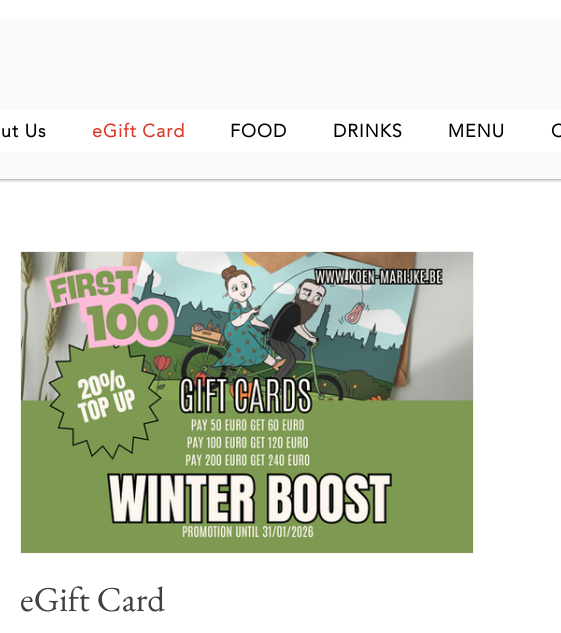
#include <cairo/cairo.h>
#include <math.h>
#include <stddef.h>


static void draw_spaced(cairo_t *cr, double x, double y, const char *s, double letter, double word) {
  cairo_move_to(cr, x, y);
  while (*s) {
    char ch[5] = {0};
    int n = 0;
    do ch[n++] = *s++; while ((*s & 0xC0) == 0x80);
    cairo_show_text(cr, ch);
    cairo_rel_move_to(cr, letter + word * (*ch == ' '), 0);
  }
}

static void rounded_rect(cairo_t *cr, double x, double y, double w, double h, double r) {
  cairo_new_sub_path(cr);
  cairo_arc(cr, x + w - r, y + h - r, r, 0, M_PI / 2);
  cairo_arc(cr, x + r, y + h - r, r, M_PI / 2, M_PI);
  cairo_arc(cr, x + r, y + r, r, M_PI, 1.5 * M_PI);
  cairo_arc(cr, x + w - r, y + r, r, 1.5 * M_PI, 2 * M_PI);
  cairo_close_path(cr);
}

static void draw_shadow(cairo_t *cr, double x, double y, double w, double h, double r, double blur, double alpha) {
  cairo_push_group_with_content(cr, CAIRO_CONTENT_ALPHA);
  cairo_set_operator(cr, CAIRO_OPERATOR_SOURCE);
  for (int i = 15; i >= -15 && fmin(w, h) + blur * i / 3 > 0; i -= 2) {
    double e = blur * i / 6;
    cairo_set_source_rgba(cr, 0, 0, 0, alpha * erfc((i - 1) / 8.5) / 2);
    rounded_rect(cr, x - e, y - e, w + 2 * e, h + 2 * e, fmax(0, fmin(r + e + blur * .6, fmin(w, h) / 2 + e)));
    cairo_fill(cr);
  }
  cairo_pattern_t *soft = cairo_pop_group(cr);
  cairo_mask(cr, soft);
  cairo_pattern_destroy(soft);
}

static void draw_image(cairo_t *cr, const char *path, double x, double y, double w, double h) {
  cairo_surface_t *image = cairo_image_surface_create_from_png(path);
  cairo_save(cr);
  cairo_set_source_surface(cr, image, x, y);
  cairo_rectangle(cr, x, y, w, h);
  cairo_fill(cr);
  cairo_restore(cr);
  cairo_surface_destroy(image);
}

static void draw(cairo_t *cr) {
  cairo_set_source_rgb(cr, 1, 1, 1);
  cairo_paint(cr);
  cairo_save(cr);
  cairo_rectangle(cr, 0, 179, 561, 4);
  cairo_clip(cr);
  cairo_set_source_rgb(cr, 0, 0, 0);
  draw_shadow(cr, 0, 1, 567, 178, 0, 2, 0.6);
  cairo_restore(cr);
  cairo_set_source_rgb(cr, 250 / 255.0, 250 / 255.0, 250 / 255.0);
  cairo_rectangle(cr, 0, 20, 561, 159);
  cairo_fill(cr);
  cairo_set_source_rgb(cr, 1, 1, 1);
  cairo_rectangle(cr, 0, 110, 561, 42);
  cairo_fill(cr);
  cairo_rectangle(cr, 20.5, 251.5, 453, 302);
  cairo_set_source_rgb(cr, 242 / 255.0, 242 / 255.0, 242 / 255.0);
  cairo_set_line_width(cr, 1);
  cairo_stroke(cr);
  draw_image(cr, "images/1.png", 21, 252, 452, 301);
  cairo_select_font_face(cr, "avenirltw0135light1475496", CAIRO_FONT_SLANT_NORMAL, CAIRO_FONT_WEIGHT_BOLD);
  cairo_set_font_size(cr, 18);
  cairo_set_source_rgb(cr, 0, 0, 0);
  draw_spaced(cr, 1, 137, "ut Us", 1, 0);
  cairo_set_source_rgb(cr, 220 / 255.0, 55 / 255.0, 39 / 255.0);
  draw_spaced(cr, 92, 137, "eGift Card", 1, 0);
  cairo_set_source_rgb(cr, 0, 0, 0);
  draw_spaced(cr, 230, 137, "FOOD", 1, 0);
  draw_spaced(cr, 333, 137, "DRINKS", 1, 0);
  draw_spaced(cr, 448, 137, "MENU", 1, 0);
  draw_spaced(cr, 551, 137, "C", 1, 0);
  cairo_select_font_face(cr, "EB Garamond", CAIRO_FONT_SLANT_NORMAL, CAIRO_FONT_WEIGHT_NORMAL);
  cairo_set_font_size(cr, 35);
  cairo_set_source_rgb(cr, 65 / 255.0, 65 / 255.0, 65 / 255.0);
  cairo_move_to(cr, 20, 611);
  cairo_show_text(cr, "eGift Card");
}

int main(void) {
  cairo_surface_t *surface = cairo_image_surface_create(CAIRO_FORMAT_RGB24, 561, 633);
  cairo_t *cr = cairo_create(surface);
  cairo_font_options_t *options = cairo_font_options_create();
  cairo_font_options_set_hint_metrics(options, CAIRO_HINT_METRICS_OFF);
  cairo_font_options_set_hint_style(options, CAIRO_HINT_STYLE_NONE);
  cairo_set_font_options(cr, options);
  cairo_set_miter_limit(cr, 4);
  draw(cr);
  cairo_surface_write_to_png(surface, "out.png");
  cairo_font_options_destroy(options);
  cairo_destroy(cr);
  cairo_surface_destroy(surface);
  return 0;
}
